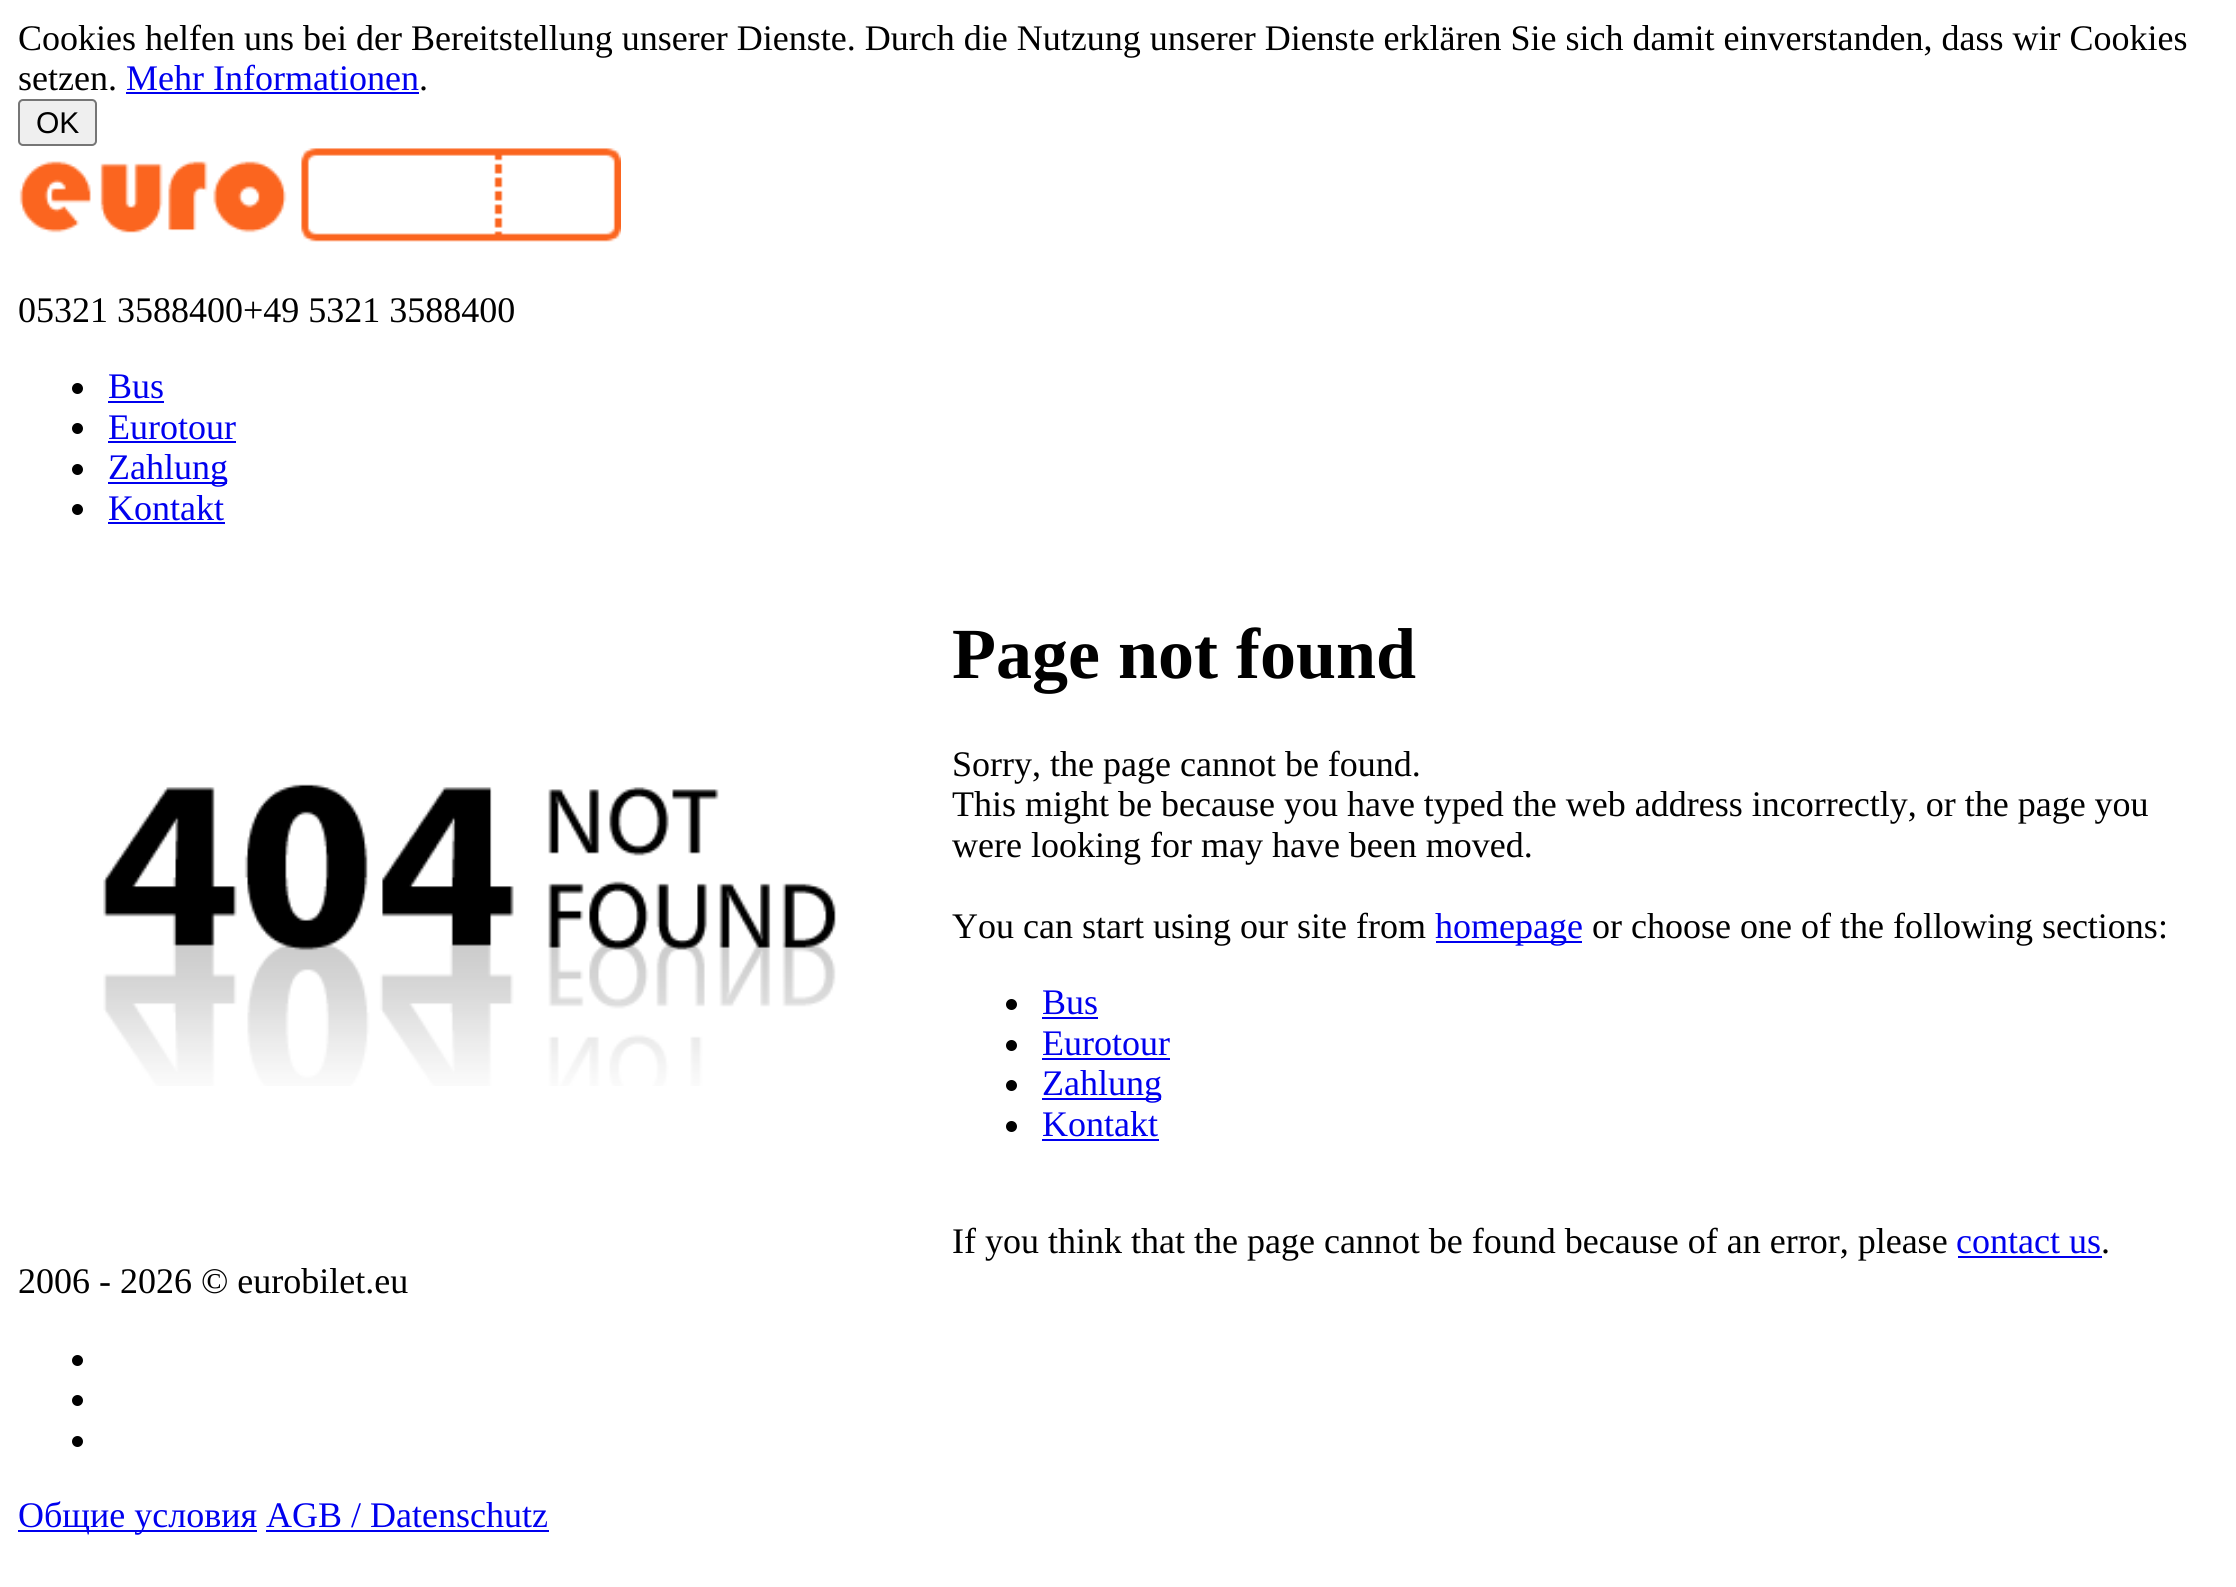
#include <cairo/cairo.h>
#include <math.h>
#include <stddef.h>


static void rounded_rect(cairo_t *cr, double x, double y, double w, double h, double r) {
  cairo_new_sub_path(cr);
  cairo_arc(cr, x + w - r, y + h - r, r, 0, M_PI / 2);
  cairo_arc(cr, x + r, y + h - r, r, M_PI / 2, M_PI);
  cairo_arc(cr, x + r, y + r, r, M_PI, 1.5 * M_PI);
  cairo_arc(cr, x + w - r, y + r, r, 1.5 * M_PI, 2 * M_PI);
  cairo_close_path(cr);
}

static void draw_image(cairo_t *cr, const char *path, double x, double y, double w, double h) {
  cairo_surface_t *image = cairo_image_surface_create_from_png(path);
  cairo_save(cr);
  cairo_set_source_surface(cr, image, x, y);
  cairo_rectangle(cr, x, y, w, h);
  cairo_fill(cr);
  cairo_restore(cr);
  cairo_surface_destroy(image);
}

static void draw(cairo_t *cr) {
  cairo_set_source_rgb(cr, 1, 1, 1);
  cairo_paint(cr);
  cairo_set_source_rgb(cr, 0, 0, 238 / 255.0);
  cairo_rectangle(cr, 126, 92, 293, 2);
  cairo_fill(cr);
  cairo_set_source_rgb(cr, 239 / 255.0, 239 / 255.0, 239 / 255.0);
  rounded_rect(cr, 19, 100, 77, 45, 4);
  cairo_fill_preserve(cr);
  cairo_set_source_rgb(cr, 118 / 255.0, 118 / 255.0, 118 / 255.0);
  cairo_stroke(cr);
  draw_image(cr, "images/1.png", 19, 148, 602, 94);
  cairo_set_source_rgb(cr, 0, 0, 0);
  cairo_arc(cr, 77.5, 388.5, 5.5, 0, 2 * M_PI);
  cairo_fill(cr);
  cairo_set_source_rgb(cr, 0, 0, 238 / 255.0);
  cairo_rectangle(cr, 108, 401, 56, 2);
  cairo_fill(cr);
  cairo_set_source_rgb(cr, 0, 0, 0);
  cairo_arc(cr, 77.5, 428.5, 5.5, 0, 2 * M_PI);
  cairo_fill(cr);
  cairo_set_source_rgb(cr, 0, 0, 238 / 255.0);
  cairo_rectangle(cr, 108, 441, 128, 2);
  cairo_fill(cr);
  cairo_set_source_rgb(cr, 0, 0, 0);
  cairo_arc(cr, 77.5, 469.5, 5.5, 0, 2 * M_PI);
  cairo_fill(cr);
  cairo_set_source_rgb(cr, 0, 0, 238 / 255.0);
  cairo_rectangle(cr, 108, 482, 119, 2);
  cairo_fill(cr);
  cairo_set_source_rgb(cr, 0, 0, 0);
  cairo_arc(cr, 77.5, 509.5, 5.5, 0, 2 * M_PI);
  cairo_fill(cr);
  cairo_set_source_rgb(cr, 0, 0, 238 / 255.0);
  cairo_rectangle(cr, 108, 522, 117, 2);
  cairo_fill(cr);
  draw_image(cr, "images/2.png", 103, 784, 733, 302);
  cairo_rectangle(cr, 1436, 941, 146, 2);
  cairo_fill(cr);
  cairo_set_source_rgb(cr, 0, 0, 0);
  cairo_arc(cr, 1011.5, 1004.5, 5.5, 0, 2 * M_PI);
  cairo_fill(cr);
  cairo_set_source_rgb(cr, 0, 0, 238 / 255.0);
  cairo_rectangle(cr, 1042, 1017, 56, 2);
  cairo_fill(cr);
  cairo_set_source_rgb(cr, 0, 0, 0);
  cairo_arc(cr, 1011.5, 1045.5, 5.5, 0, 2 * M_PI);
  cairo_fill(cr);
  cairo_set_source_rgb(cr, 0, 0, 238 / 255.0);
  cairo_rectangle(cr, 1042, 1058, 128, 2);
  cairo_fill(cr);
  cairo_set_source_rgb(cr, 0, 0, 0);
  cairo_arc(cr, 1011.5, 1085.5, 5.5, 0, 2 * M_PI);
  cairo_fill(cr);
  cairo_set_source_rgb(cr, 0, 0, 238 / 255.0);
  cairo_rectangle(cr, 1042, 1098, 119, 2);
  cairo_fill(cr);
  cairo_set_source_rgb(cr, 0, 0, 0);
  cairo_arc(cr, 1011.5, 1126.5, 5.5, 0, 2 * M_PI);
  cairo_fill(cr);
  cairo_set_source_rgb(cr, 0, 0, 238 / 255.0);
  cairo_rectangle(cr, 1042, 1139, 117, 2);
  cairo_fill(cr);
  cairo_rectangle(cr, 1958, 1256, 144, 2);
  cairo_fill(cr);
  cairo_set_source_rgb(cr, 0, 0, 0);
  cairo_arc(cr, 77.5, 1360.5, 5.5, 0, 2 * M_PI);
  cairo_fill(cr);
  cairo_arc(cr, 77.5, 1400.5, 5.5, 0, 2 * M_PI);
  cairo_fill(cr);
  cairo_arc(cr, 77.5, 1441.5, 5.5, 0, 2 * M_PI);
  cairo_fill(cr);
  cairo_set_source_rgb(cr, 0, 0, 238 / 255.0);
  cairo_rectangle(cr, 18, 1530, 239, 2);
  cairo_fill(cr);
  cairo_rectangle(cr, 266, 1530, 283, 2);
  cairo_fill(cr);
  cairo_select_font_face(cr, "Liberation Serif", CAIRO_FONT_SLANT_NORMAL, CAIRO_FONT_WEIGHT_NORMAL);
  cairo_set_font_size(cr, 36);
  cairo_set_source_rgb(cr, 0, 0, 0);
  cairo_move_to(cr, 18, 50);
  cairo_show_text(cr, "Cookies helfen uns bei der Bereitstellung unserer Dienste. Durch die Nutzung unserer Dienste erklären Sie sich damit einverstanden, dass wir Cookies");
  cairo_move_to(cr, 18, 90);
  cairo_show_text(cr, "setzen.");
  cairo_set_source_rgb(cr, 0, 0, 238 / 255.0);
  cairo_move_to(cr, 126, 90);
  cairo_show_text(cr, "Mehr Informationen");
  cairo_set_source_rgb(cr, 0, 0, 0);
  cairo_move_to(cr, 419, 90);
  cairo_show_text(cr, ".");
  cairo_select_font_face(cr, "Liberation Sans", CAIRO_FONT_SLANT_NORMAL, CAIRO_FONT_WEIGHT_NORMAL);
  cairo_set_font_size(cr, 30);
  cairo_move_to(cr, 36, 133);
  cairo_show_text(cr, "OK");
  cairo_select_font_face(cr, "Liberation Serif", CAIRO_FONT_SLANT_NORMAL, CAIRO_FONT_WEIGHT_NORMAL);
  cairo_set_font_size(cr, 36);
  cairo_move_to(cr, 18, 322);
  cairo_show_text(cr, "05321 3588400+49 5321 3588400");
  cairo_set_source_rgb(cr, 0, 0, 238 / 255.0);
  cairo_move_to(cr, 108, 398);
  cairo_show_text(cr, "Bus");
  cairo_move_to(cr, 108, 439);
  cairo_show_text(cr, "Eurotour");
  cairo_move_to(cr, 108, 479);
  cairo_show_text(cr, "Zahlung");
  cairo_move_to(cr, 108, 520);
  cairo_show_text(cr, "Kontakt");
  cairo_select_font_face(cr, "Liberation Serif", CAIRO_FONT_SLANT_NORMAL, CAIRO_FONT_WEIGHT_BOLD);
  cairo_set_font_size(cr, 72);
  cairo_set_source_rgb(cr, 0, 0, 0);
  cairo_move_to(cr, 952, 678);
  cairo_show_text(cr, "Page not found");
  cairo_select_font_face(cr, "Liberation Serif", CAIRO_FONT_SLANT_NORMAL, CAIRO_FONT_WEIGHT_NORMAL);
  cairo_set_font_size(cr, 36);
  cairo_move_to(cr, 952, 776);
  cairo_show_text(cr, "Sorry, the page cannot be found.");
  cairo_move_to(cr, 952, 816);
  cairo_show_text(cr, "This might be because you have typed the web address incorrectly, or the page you");
  cairo_move_to(cr, 952, 857);
  cairo_show_text(cr, "were looking for may have been moved.");
  cairo_move_to(cr, 952, 938);
  cairo_show_text(cr, "You can start using our site from");
  cairo_set_source_rgb(cr, 0, 0, 238 / 255.0);
  cairo_move_to(cr, 1435, 938);
  cairo_show_text(cr, "homepage");
  cairo_set_source_rgb(cr, 0, 0, 0);
  cairo_move_to(cr, 1592, 938);
  cairo_show_text(cr, "or choose one of the following sections:");
  cairo_set_source_rgb(cr, 0, 0, 238 / 255.0);
  cairo_move_to(cr, 1042, 1014);
  cairo_show_text(cr, "Bus");
  cairo_move_to(cr, 1042, 1055);
  cairo_show_text(cr, "Eurotour");
  cairo_move_to(cr, 1042, 1095);
  cairo_show_text(cr, "Zahlung");
  cairo_move_to(cr, 1042, 1136);
  cairo_show_text(cr, "Kontakt");
  cairo_set_source_rgb(cr, 0, 0, 0);
  cairo_move_to(cr, 952, 1253);
  cairo_show_text(cr, "If you think that the page cannot be found because of an error, please");
  cairo_set_source_rgb(cr, 0, 0, 238 / 255.0);
  cairo_move_to(cr, 1956, 1253);
  cairo_show_text(cr, "contact us");
  cairo_set_source_rgb(cr, 0, 0, 0);
  cairo_move_to(cr, 2101, 1253);
  cairo_show_text(cr, ".");
  cairo_move_to(cr, 18, 1293);
  cairo_show_text(cr, "2006 - 2026 © eurobilet.eu");
  cairo_set_source_rgb(cr, 0, 0, 238 / 255.0);
  cairo_move_to(cr, 18, 1527);
  cairo_show_text(cr, "Общие условия AGB / Datenschutz");
}

int main(void) {
  cairo_surface_t *surface = cairo_image_surface_create(CAIRO_FORMAT_RGB24, 2236, 1587);
  cairo_t *cr = cairo_create(surface);
  cairo_font_options_t *options = cairo_font_options_create();
  cairo_font_options_set_hint_metrics(options, CAIRO_HINT_METRICS_OFF);
  cairo_font_options_set_hint_style(options, CAIRO_HINT_STYLE_NONE);
  cairo_set_font_options(cr, options);
  cairo_set_miter_limit(cr, 4);
  draw(cr);
  cairo_surface_write_to_png(surface, "out.png");
  cairo_font_options_destroy(options);
  cairo_destroy(cr);
  cairo_surface_destroy(surface);
  return 0;
}
